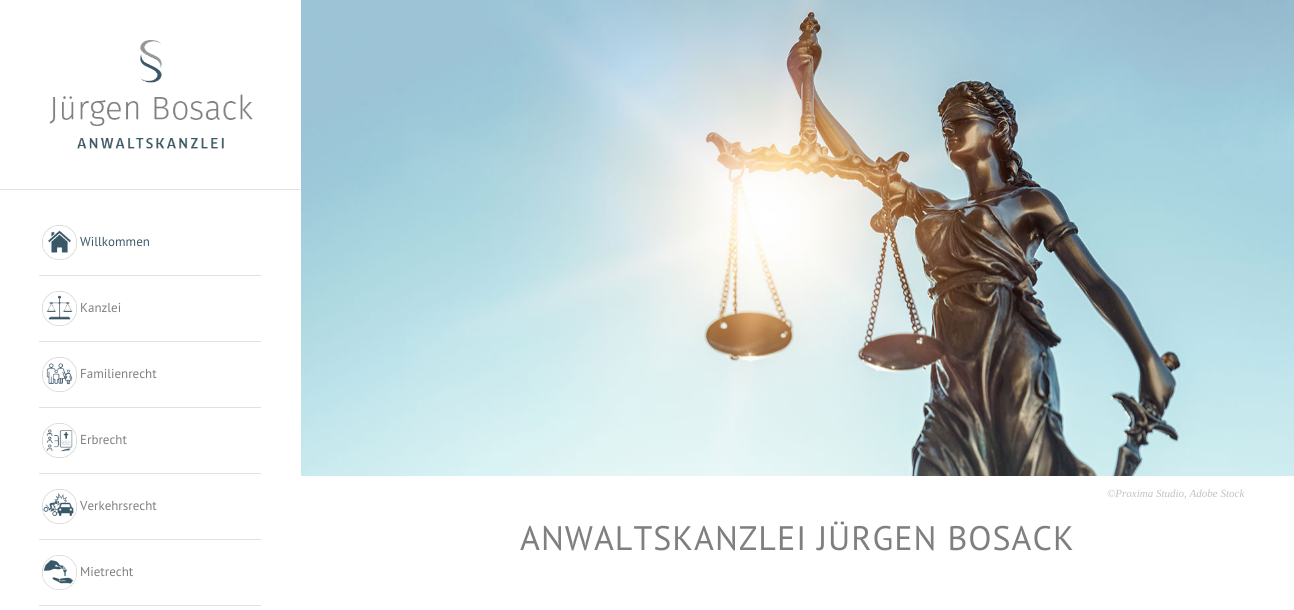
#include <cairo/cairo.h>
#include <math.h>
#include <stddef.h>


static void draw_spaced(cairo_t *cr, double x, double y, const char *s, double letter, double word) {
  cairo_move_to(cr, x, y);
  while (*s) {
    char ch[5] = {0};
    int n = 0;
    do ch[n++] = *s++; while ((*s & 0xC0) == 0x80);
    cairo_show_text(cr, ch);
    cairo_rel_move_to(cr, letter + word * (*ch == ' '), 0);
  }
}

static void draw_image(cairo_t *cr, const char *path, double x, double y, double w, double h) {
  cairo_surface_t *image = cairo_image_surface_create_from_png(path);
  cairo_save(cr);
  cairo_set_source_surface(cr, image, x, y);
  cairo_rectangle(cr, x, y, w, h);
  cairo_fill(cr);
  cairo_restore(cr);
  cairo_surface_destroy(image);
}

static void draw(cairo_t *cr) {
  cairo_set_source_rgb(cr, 1, 1, 1);
  cairo_paint(cr);
  cairo_set_source_rgb(cr, 225 / 255.0, 225 / 255.0, 225 / 255.0);
  cairo_rectangle(cr, 0, 189, 300, 1);
  cairo_fill(cr);
  draw_image(cr, "images/1.png", 49, 40, 204, 109);
  cairo_rectangle(cr, 39, 275, 222, 1);
  cairo_fill(cr);
  draw_image(cr, "images/2.png", 42, 225, 35, 35);
  cairo_rectangle(cr, 39, 341, 222, 1);
  cairo_fill(cr);
  draw_image(cr, "images/3.png", 42, 291, 35, 35);
  cairo_rectangle(cr, 39, 407, 222, 1);
  cairo_fill(cr);
  draw_image(cr, "images/4.png", 42, 357, 35, 35);
  cairo_rectangle(cr, 39, 473, 222, 1);
  cairo_fill(cr);
  draw_image(cr, "images/5.png", 42, 423, 35, 35);
  cairo_rectangle(cr, 39, 539, 222, 1);
  cairo_fill(cr);
  draw_image(cr, "images/6.png", 42, 489, 35, 35);
  cairo_rectangle(cr, 39, 605, 222, 1);
  cairo_fill(cr);
  draw_image(cr, "images/7.png", 42, 555, 35, 35);
  draw_image(cr, "images/8.png", 301, 0, 993, 476);
  cairo_select_font_face(cr, "PT Sans", CAIRO_FONT_SLANT_NORMAL, CAIRO_FONT_WEIGHT_NORMAL);
  cairo_set_font_size(cr, 13);
  cairo_set_source_rgb(cr, 63 / 255.0, 89 / 255.0, 104 / 255.0);
  cairo_move_to(cr, 80, 246);
  cairo_show_text(cr, "Willkommen");
  cairo_set_source_rgb(cr, 128 / 255.0, 127 / 255.0, 125 / 255.0);
  cairo_move_to(cr, 80, 312);
  cairo_show_text(cr, "Kanzlei");
  cairo_move_to(cr, 80, 378);
  cairo_show_text(cr, "Familienrecht");
  cairo_move_to(cr, 80, 444);
  cairo_show_text(cr, "Erbrecht");
  cairo_move_to(cr, 80, 510);
  cairo_show_text(cr, "Verkehrsrecht");
  cairo_move_to(cr, 80, 576);
  cairo_show_text(cr, "Mietrecht");
  cairo_select_font_face(cr, "Liberation Serif", CAIRO_FONT_SLANT_ITALIC, CAIRO_FONT_WEIGHT_NORMAL);
  cairo_set_font_size(cr, 11);
  cairo_set_source_rgb(cr, 193 / 255.0, 193 / 255.0, 193 / 255.0);
  cairo_move_to(cr, 1107, 497);
  cairo_show_text(cr, "©Proxima Studio, Adobe Stock");
  cairo_select_font_face(cr, "PT Sans", CAIRO_FONT_SLANT_NORMAL, CAIRO_FONT_WEIGHT_NORMAL);
  cairo_set_font_size(cr, 34);
  cairo_set_source_rgb(cr, 128 / 255.0, 127 / 255.0, 125 / 255.0);
  draw_spaced(cr, 520, 550, "ANWALTSKANZLEI JÜRGEN BOSACK", 1, 0);
}

int main(void) {
  cairo_surface_t *surface = cairo_image_surface_create(CAIRO_FORMAT_RGB24, 1294, 610);
  cairo_t *cr = cairo_create(surface);
  cairo_font_options_t *options = cairo_font_options_create();
  cairo_font_options_set_hint_metrics(options, CAIRO_HINT_METRICS_OFF);
  cairo_font_options_set_hint_style(options, CAIRO_HINT_STYLE_NONE);
  cairo_set_font_options(cr, options);
  cairo_set_miter_limit(cr, 4);
  draw(cr);
  cairo_surface_write_to_png(surface, "out.png");
  cairo_font_options_destroy(options);
  cairo_destroy(cr);
  cairo_surface_destroy(surface);
  return 0;
}
